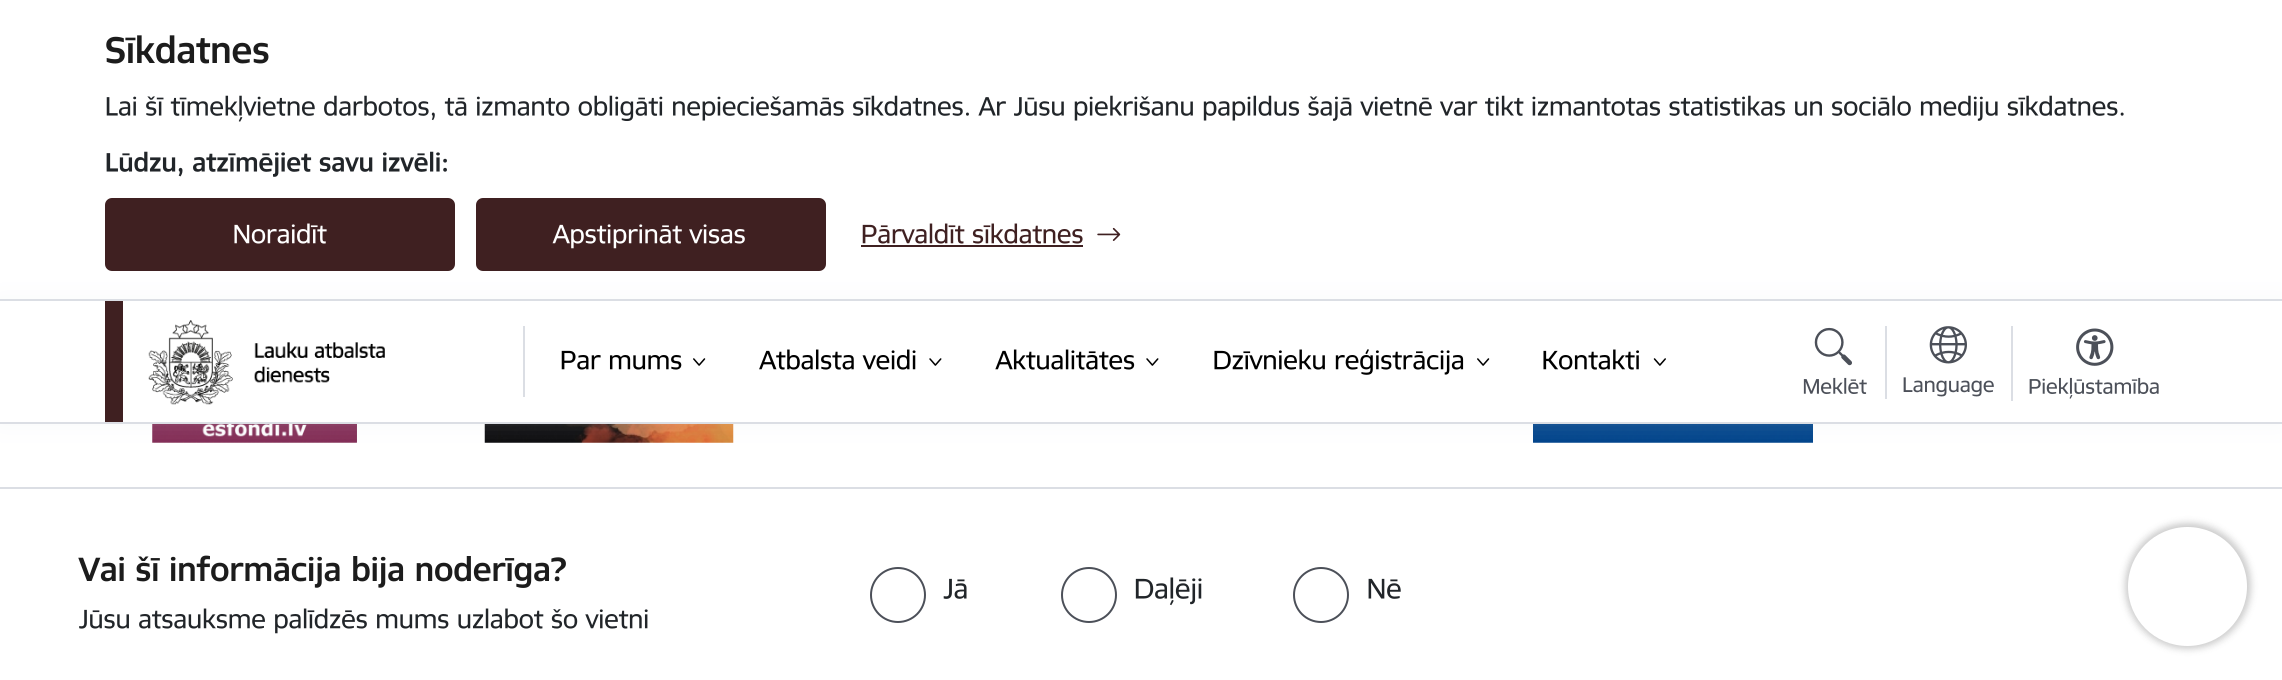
#include <cairo/cairo.h>
#include <math.h>
#include <stddef.h>


static void rounded_rect(cairo_t *cr, double x, double y, double w, double h, double r) {
  cairo_new_sub_path(cr);
  cairo_arc(cr, x + w - r, y + h - r, r, 0, M_PI / 2);
  cairo_arc(cr, x + r, y + h - r, r, M_PI / 2, M_PI);
  cairo_arc(cr, x + r, y + r, r, M_PI, 1.5 * M_PI);
  cairo_arc(cr, x + w - r, y + r, r, 1.5 * M_PI, 2 * M_PI);
  cairo_close_path(cr);
}

static void draw_shadow(cairo_t *cr, double x, double y, double w, double h, double r, double blur, double alpha) {
  cairo_push_group_with_content(cr, CAIRO_CONTENT_ALPHA);
  cairo_set_operator(cr, CAIRO_OPERATOR_SOURCE);
  for (int i = 15; i >= -15 && fmin(w, h) + blur * i / 3 > 0; i -= 2) {
    double e = blur * i / 6;
    cairo_set_source_rgba(cr, 0, 0, 0, alpha * erfc((i - 1) / 8.5) / 2);
    rounded_rect(cr, x - e, y - e, w + 2 * e, h + 2 * e, fmax(0, fmin(r + e + blur * .6, fmin(w, h) / 2 + e)));
    cairo_fill(cr);
  }
  cairo_pattern_t *soft = cairo_pop_group(cr);
  cairo_mask(cr, soft);
  cairo_pattern_destroy(soft);
}

static void draw_image(cairo_t *cr, const char *path, double x, double y, double w, double h) {
  cairo_surface_t *image = cairo_image_surface_create_from_png(path);
  cairo_save(cr);
  cairo_set_source_surface(cr, image, x, y);
  cairo_rectangle(cr, x, y, w, h);
  cairo_fill(cr);
  cairo_restore(cr);
  cairo_surface_destroy(image);
}

static void draw(cairo_t *cr) {
  cairo_set_source_rgb(cr, 1, 1, 1);
  cairo_paint(cr);
  cairo_set_source_rgb(cr, 219 / 255.0, 222 / 255.0, 228 / 255.0);
  cairo_rectangle(cr, 0, 299, 2282, 2);
  cairo_fill(cr);
  draw_image(cr, "images/1.png", 106, 35, 163, 29);
  draw_image(cr, "images/2.png", 106, 95, 2018, 27);
  draw_image(cr, "images/3.png", 106, 151, 341, 26);
  cairo_set_source_rgb(cr, 63 / 255.0, 32 / 255.0, 33 / 255.0);
  rounded_rect(cr, 106, 199, 348, 71, 6);
  cairo_fill_preserve(cr);
  cairo_stroke(cr);
  draw_image(cr, "images/4.png", 234, 223, 93, 21);
  rounded_rect(cr, 477, 199, 348, 71, 6);
  cairo_fill_preserve(cr);
  cairo_stroke(cr);
  draw_image(cr, "images/5.png", 552, 224, 193, 25);
  draw_image(cr, "images/6.png", 862, 223, 221, 21);
  draw_image(cr, "images/7.png", 1097, 227, 24, 14);
  cairo_rectangle(cr, 861, 245, 222, 2);
  cairo_fill(cr);
  draw_image(cr, "images/23.png", 152, 424, 205, 19);
  draw_image(cr, "images/24.png", 484, 424, 250, 19);
  draw_image(cr, "images/25.png", 1533, 424, 280, 19);
  cairo_save(cr);
  cairo_set_fill_rule(cr, CAIRO_FILL_RULE_EVEN_ODD);
  cairo_new_path(cr);
  cairo_move_to(cr, 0, 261);
  cairo_line_to(cr, 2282, 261);
  cairo_line_to(cr, 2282, 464);
  cairo_line_to(cr, 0, 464);
  cairo_close_path(cr);
  cairo_move_to(cr, 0, 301);
  cairo_line_to(cr, 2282, 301);
  cairo_line_to(cr, 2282, 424);
  cairo_line_to(cr, 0, 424);
  cairo_close_path(cr);
  cairo_clip(cr);
  cairo_set_source_rgb(cr, 219 / 255.0, 222 / 255.0, 228 / 255.0);
  draw_shadow(cr, 0, 301, 2282, 123, 0, 13, 0.2);
  cairo_restore(cr);
  cairo_set_source_rgb(cr, 219 / 255.0, 222 / 255.0, 228 / 255.0);
  cairo_rectangle(cr, 0, 422, 2282, 2);
  cairo_fill(cr);
  cairo_set_source_rgb(cr, 63 / 255.0, 32 / 255.0, 33 / 255.0);
  cairo_rectangle(cr, 105, 301, 18, 121);
  cairo_fill(cr);
  draw_image(cr, "images/8.png", 148, 320, 237, 85);
  cairo_set_source_rgb(cr, 219 / 255.0, 222 / 255.0, 228 / 255.0);
  cairo_rectangle(cr, 523, 326, 2, 71);
  cairo_fill(cr);
  draw_image(cr, "images/9.png", 561, 350, 121, 20);
  draw_image(cr, "images/10.png", 693, 358, 13, 8);
  draw_image(cr, "images/11.png", 759, 349, 157, 21);
  draw_image(cr, "images/12.png", 929, 358, 13, 8);
  draw_image(cr, "images/13.png", 995, 349, 140, 21);
  draw_image(cr, "images/12.png", 1146, 358, 13, 8);
  draw_image(cr, "images/14.png", 1214, 349, 250, 26);
  draw_image(cr, "images/10.png", 1477, 358, 13, 8);
  draw_image(cr, "images/15.png", 1543, 349, 96, 21);
  draw_image(cr, "images/16.png", 1653, 358, 13, 8);
  draw_image(cr, "images/17.png", 1814, 327, 38, 39);
  draw_image(cr, "images/18.png", 1803, 377, 64, 17);
  cairo_rectangle(cr, 1885, 326, 2, 73);
  cairo_fill(cr);
  draw_image(cr, "images/19.png", 1929, 326, 38, 38);
  draw_image(cr, "images/20.png", 1903, 377, 91, 20);
  cairo_rectangle(cr, 2011, 326, 2, 75);
  cairo_fill(cr);
  draw_image(cr, "images/21.png", 2076, 328, 38, 38);
  draw_image(cr, "images/22.png", 2029, 377, 130, 22);
  cairo_rectangle(cr, 0, 487, 2282, 2);
  cairo_fill(cr);
  draw_image(cr, "images/26.png", 78, 555, 488, 33);
  draw_image(cr, "images/27.png", 79, 608, 569, 26);
  cairo_arc(cr, 898, 595, 27, 0, 2 * M_PI);
  cairo_set_source_rgb(cr, 76 / 255.0, 80 / 255.0, 89 / 255.0);
  cairo_stroke(cr);
  draw_image(cr, "images/28.png", 943, 578, 24, 21);
  cairo_arc(cr, 1089, 595, 27, 0, 2 * M_PI);
  cairo_stroke(cr);
  draw_image(cr, "images/29.png", 1135, 577, 67, 29);
  cairo_arc(cr, 1321, 595, 27, 0, 2 * M_PI);
  cairo_stroke(cr);
  draw_image(cr, "images/30.png", 1368, 578, 33, 21);
  cairo_set_source_rgb(cr, 0, 0, 0);
  draw_shadow(cr, 2125, 523, 126, 126, 63, 3.5, 0.2);
  cairo_set_source_rgb(cr, 1, 1, 1);
  cairo_arc(cr, 2187.5, 586.5, 59.5, 0, 2 * M_PI);
  cairo_fill(cr);
}

int main(void) {
  cairo_surface_t *surface = cairo_image_surface_create(CAIRO_FORMAT_RGB24, 2282, 680);
  cairo_t *cr = cairo_create(surface);
  cairo_font_options_t *options = cairo_font_options_create();
  cairo_font_options_set_hint_metrics(options, CAIRO_HINT_METRICS_OFF);
  cairo_font_options_set_hint_style(options, CAIRO_HINT_STYLE_NONE);
  cairo_set_font_options(cr, options);
  cairo_set_miter_limit(cr, 4);
  draw(cr);
  cairo_surface_write_to_png(surface, "out.png");
  cairo_font_options_destroy(options);
  cairo_destroy(cr);
  cairo_surface_destroy(surface);
  return 0;
}
